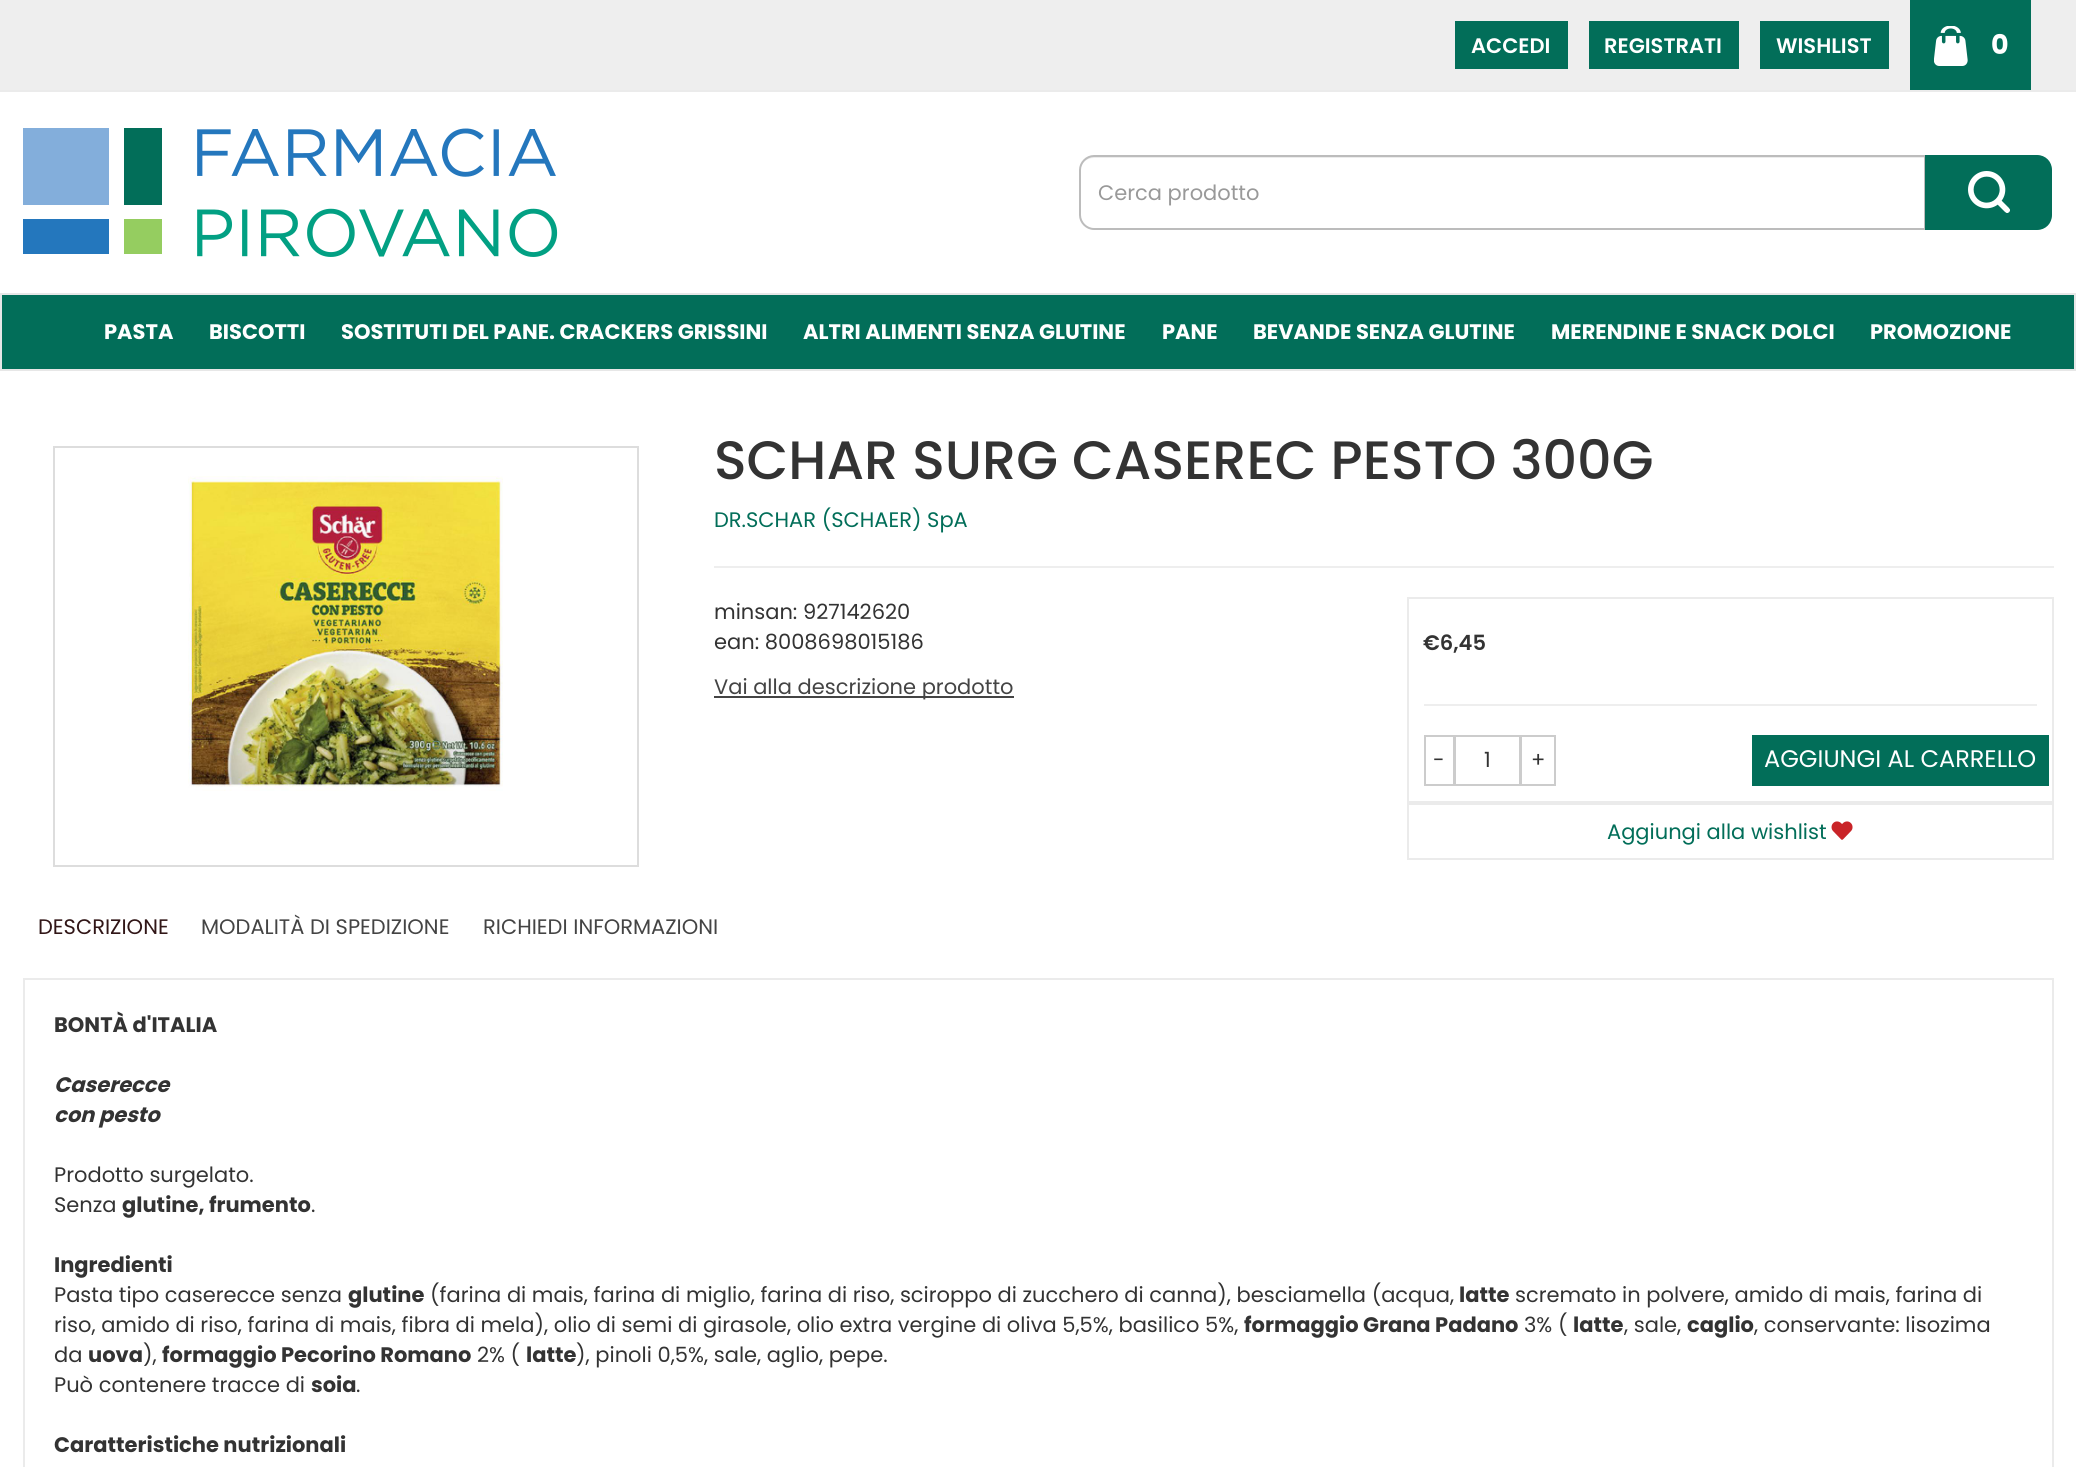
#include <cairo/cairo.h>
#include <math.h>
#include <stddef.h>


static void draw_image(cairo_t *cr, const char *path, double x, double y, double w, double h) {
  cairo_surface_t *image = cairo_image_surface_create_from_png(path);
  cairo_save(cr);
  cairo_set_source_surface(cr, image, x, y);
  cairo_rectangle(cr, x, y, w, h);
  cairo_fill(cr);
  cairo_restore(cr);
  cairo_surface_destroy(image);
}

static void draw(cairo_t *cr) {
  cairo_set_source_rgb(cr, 1, 1, 1);
  cairo_paint(cr);
  cairo_set_source_rgb(cr, 238 / 255.0, 238 / 255.0, 238 / 255.0);
  cairo_rectangle(cr, 0, 0, 2076, 90);
  cairo_fill(cr);
  cairo_set_source_rgb(cr, 235 / 255.0, 235 / 255.0, 235 / 255.0);
  cairo_rectangle(cr, 0, 90, 2076, 2);
  cairo_fill(cr);
  cairo_set_source_rgb(cr, 2 / 255.0, 110 / 255.0, 89 / 255.0);
  cairo_rectangle(cr, 1455, 21, 113, 48);
  cairo_fill(cr);
  cairo_rectangle(cr, 1589, 21, 150, 48);
  cairo_fill(cr);
  cairo_rectangle(cr, 1760, 21, 129, 48);
  cairo_fill(cr);
  cairo_rectangle(cr, 1910, 0, 121, 90);
  cairo_fill(cr);
  draw_image(cr, "images/1.png", 1934, 26, 34, 40);
  draw_image(cr, "images/2.png", 23, 128, 535, 129);
  cairo_set_source_rgb(cr, 236 / 255.0, 236 / 255.0, 236 / 255.0);
  cairo_new_path(cr);
  cairo_move_to(cr, 1094, 158);
  cairo_line_to(cr, 1924, 158);
  cairo_line_to(cr, 1924, 228);
  cairo_line_to(cr, 1925, 228);
  cairo_line_to(cr, 1925, 156);
  cairo_line_to(cr, 1094, 156);
  cairo_curve_to(cr, 1086, 156, 1080, 163, 1080, 171);
  cairo_curve_to(cr, 1080, 164, 1086, 158, 1094, 158);
  cairo_close_path(cr);
  cairo_fill(cr);
  cairo_new_path(cr);
  cairo_move_to(cr, 1094, 156);
  cairo_line_to(cr, 1925, 156);
  cairo_line_to(cr, 1925, 229);
  cairo_line_to(cr, 1094, 229);
  cairo_curve_to(cr, 1086.5, 229, 1080, 222.5, 1080, 215);
  cairo_line_to(cr, 1080, 170);
  cairo_curve_to(cr, 1080, 162.5, 1086.5, 156, 1094, 156);
  cairo_close_path(cr);
  cairo_set_source_rgb(cr, 188 / 255.0, 188 / 255.0, 188 / 255.0);
  cairo_stroke(cr);
  cairo_set_source_rgb(cr, 2 / 255.0, 110 / 255.0, 89 / 255.0);
  cairo_new_path(cr);
  cairo_move_to(cr, 1925, 155);
  cairo_line_to(cr, 2037, 155);
  cairo_curve_to(cr, 2045.5, 155, 2052, 161.5, 2052, 170);
  cairo_line_to(cr, 2052, 215);
  cairo_curve_to(cr, 2052, 223.5, 2045.5, 230, 2037, 230);
  cairo_line_to(cr, 1925, 230);
  cairo_close_path(cr);
  cairo_fill(cr);
  draw_image(cr, "images/3.png", 1968, 171, 42, 42);
  cairo_rectangle(cr, 1, 294, 2074, 76);
  cairo_fill_preserve(cr);
  cairo_set_source_rgb(cr, 231 / 255.0, 231 / 255.0, 231 / 255.0);
  cairo_stroke(cr);
  cairo_rectangle(cr, 54, 447, 584, 419);
  cairo_set_source_rgb(cr, 221 / 255.0, 221 / 255.0, 221 / 255.0);
  cairo_stroke(cr);
  draw_image(cr, "images/4.png", 188, 476, 315, 315);
  cairo_set_source_rgb(cr, 238 / 255.0, 238 / 255.0, 238 / 255.0);
  cairo_rectangle(cr, 714, 566, 1340, 2);
  cairo_fill(cr);
  cairo_set_source_rgb(cr, 68 / 255.0, 68 / 255.0, 68 / 255.0);
  cairo_rectangle(cr, 714, 696, 300, 2);
  cairo_fill(cr);
  cairo_rectangle(cr, 1408, 598, 645, 204);
  cairo_set_source_rgb(cr, 235 / 255.0, 235 / 255.0, 235 / 255.0);
  cairo_stroke(cr);
  cairo_set_source_rgb(cr, 238 / 255.0, 238 / 255.0, 238 / 255.0);
  cairo_rectangle(cr, 1424, 704, 613, 2);
  cairo_fill(cr);
  cairo_rectangle(cr, 1425, 736, 29, 49);
  cairo_set_source_rgb(cr, 204 / 255.0, 204 / 255.0, 204 / 255.0);
  cairo_stroke(cr);
  cairo_rectangle(cr, 1455, 736, 65, 49);
  cairo_stroke(cr);
  cairo_rectangle(cr, 1521, 736, 34, 49);
  cairo_stroke(cr);
  cairo_set_source_rgb(cr, 2 / 255.0, 110 / 255.0, 89 / 255.0);
  cairo_rectangle(cr, 1752, 735, 297, 51);
  cairo_fill(cr);
  cairo_rectangle(cr, 1408, 804, 645, 55);
  cairo_set_source_rgb(cr, 235 / 255.0, 235 / 255.0, 235 / 255.0);
  cairo_stroke(cr);
  draw_image(cr, "images/5.png", 1831, 821, 22, 19);
  cairo_rectangle(cr, 24, 979, 2029, 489);
  cairo_stroke(cr);
  cairo_select_font_face(cr, "Poppins SemiBold", CAIRO_FONT_SLANT_NORMAL, CAIRO_FONT_WEIGHT_NORMAL);
  cairo_set_font_size(cr, 21);
  cairo_set_source_rgb(cr, 1, 1, 1);
  cairo_move_to(cr, 1471, 53);
  cairo_show_text(cr, "ACCEDI");
  cairo_move_to(cr, 1604, 53);
  cairo_show_text(cr, "REGISTRATI");
  cairo_move_to(cr, 1776, 53);
  cairo_show_text(cr, "WISHLIST");
  cairo_select_font_face(cr, "Poppins", CAIRO_FONT_SLANT_NORMAL, CAIRO_FONT_WEIGHT_BOLD);
  cairo_set_font_size(cr, 27);
  cairo_move_to(cr, 1991, 54);
  cairo_show_text(cr, "0");
  cairo_select_font_face(cr, "Poppins", CAIRO_FONT_SLANT_NORMAL, CAIRO_FONT_WEIGHT_NORMAL);
  cairo_set_font_size(cr, 21);
  cairo_set_source_rgb(cr, 153 / 255.0, 153 / 255.0, 153 / 255.0);
  cairo_move_to(cr, 1098, 200);
  cairo_show_text(cr, "Cerca prodotto");
  cairo_select_font_face(cr, "Poppins", CAIRO_FONT_SLANT_NORMAL, CAIRO_FONT_WEIGHT_BOLD);
  cairo_set_source_rgb(cr, 1, 1, 1);
  cairo_move_to(cr, 104, 339);
  cairo_show_text(cr, "PASTA");
  cairo_move_to(cr, 209, 339);
  cairo_show_text(cr, "BISCOTTI");
  cairo_move_to(cr, 341, 339);
  cairo_show_text(cr, "SOSTITUTI DEL PANE. CRACKERS GRISSINI");
  cairo_move_to(cr, 803, 339);
  cairo_show_text(cr, "ALTRI ALIMENTI SENZA GLUTINE");
  cairo_move_to(cr, 1162, 339);
  cairo_show_text(cr, "PANE");
  cairo_move_to(cr, 1253, 339);
  cairo_show_text(cr, "BEVANDE SENZA GLUTINE");
  cairo_move_to(cr, 1551, 339);
  cairo_show_text(cr, "MERENDINE E SNACK DOLCI");
  cairo_move_to(cr, 1870, 339);
  cairo_show_text(cr, "PROMOZIONE");
  cairo_select_font_face(cr, "Poppins Medium", CAIRO_FONT_SLANT_NORMAL, CAIRO_FONT_WEIGHT_NORMAL);
  cairo_set_font_size(cr, 54);
  cairo_set_source_rgb(cr, 51 / 255.0, 51 / 255.0, 51 / 255.0);
  cairo_move_to(cr, 714, 479);
  cairo_show_text(cr, "SCHAR SURG CASEREC PESTO 300G");
  cairo_select_font_face(cr, "Poppins", CAIRO_FONT_SLANT_NORMAL, CAIRO_FONT_WEIGHT_NORMAL);
  cairo_set_font_size(cr, 21);
  cairo_set_source_rgb(cr, 2 / 255.0, 110 / 255.0, 89 / 255.0);
  cairo_move_to(cr, 714, 527);
  cairo_show_text(cr, "DR.SCHAR (SCHAER) SpA");
  cairo_set_source_rgb(cr, 51 / 255.0, 51 / 255.0, 51 / 255.0);
  cairo_move_to(cr, 714, 619);
  cairo_show_text(cr, "minsan: 927142620");
  cairo_move_to(cr, 714, 649);
  cairo_show_text(cr, "ean: 8008698015186");
  cairo_set_source_rgb(cr, 68 / 255.0, 68 / 255.0, 68 / 255.0);
  cairo_move_to(cr, 714, 694);
  cairo_show_text(cr, "Vai alla descrizione prodotto");
  cairo_select_font_face(cr, "Poppins SemiBold", CAIRO_FONT_SLANT_NORMAL, CAIRO_FONT_WEIGHT_NORMAL);
  cairo_set_source_rgb(cr, 51 / 255.0, 51 / 255.0, 51 / 255.0);
  cairo_move_to(cr, 1423, 650);
  cairo_show_text(cr, "€6,45");
  cairo_select_font_face(cr, "Poppins", CAIRO_FONT_SLANT_NORMAL, CAIRO_FONT_WEIGHT_NORMAL);
  cairo_move_to(cr, 1433, 767);
  cairo_show_text(cr, "-");
  cairo_move_to(cr, 1484, 767);
  cairo_show_text(cr, "1");
  cairo_move_to(cr, 1531, 767);
  cairo_show_text(cr, "+");
  cairo_set_font_size(cr, 24);
  cairo_set_source_rgb(cr, 1, 1, 1);
  cairo_move_to(cr, 1764, 767);
  cairo_show_text(cr, "AGGIUNGI AL CARRELLO");
  cairo_set_font_size(cr, 21);
  cairo_set_source_rgb(cr, 2 / 255.0, 110 / 255.0, 89 / 255.0);
  cairo_move_to(cr, 1607, 839);
  cairo_show_text(cr, "Aggiungi alla wishlist");
  cairo_set_source_rgb(cr, 49 / 255.0, 22 / 255.0, 23 / 255.0);
  cairo_move_to(cr, 38, 934);
  cairo_show_text(cr, "DESCRIZIONE");
  cairo_set_source_rgb(cr, 68 / 255.0, 68 / 255.0, 68 / 255.0);
  cairo_move_to(cr, 201, 934);
  cairo_show_text(cr, "MODALITÀ DI SPEDIZIONE");
  cairo_move_to(cr, 483, 934);
  cairo_show_text(cr, "RICHIEDI INFORMAZIONI");
  cairo_select_font_face(cr, "Poppins", CAIRO_FONT_SLANT_NORMAL, CAIRO_FONT_WEIGHT_BOLD);
  cairo_set_source_rgb(cr, 51 / 255.0, 51 / 255.0, 51 / 255.0);
  cairo_move_to(cr, 54, 1032);
  cairo_show_text(cr, "BONTÀ d'ITALIA");
  cairo_select_font_face(cr, "Poppins", CAIRO_FONT_SLANT_ITALIC, CAIRO_FONT_WEIGHT_BOLD);
  cairo_move_to(cr, 54, 1092);
  cairo_show_text(cr, "Caserecce");
  cairo_move_to(cr, 54, 1122);
  cairo_show_text(cr, "con pesto");
  cairo_select_font_face(cr, "Poppins", CAIRO_FONT_SLANT_NORMAL, CAIRO_FONT_WEIGHT_NORMAL);
  cairo_move_to(cr, 54, 1182);
  cairo_show_text(cr, "Prodotto surgelato.");
  cairo_move_to(cr, 54, 1212);
  cairo_show_text(cr, "Senza");
  cairo_select_font_face(cr, "Poppins", CAIRO_FONT_SLANT_NORMAL, CAIRO_FONT_WEIGHT_BOLD);
  cairo_move_to(cr, 122, 1212);
  cairo_show_text(cr, "glutine, frumento");
  cairo_select_font_face(cr, "Poppins", CAIRO_FONT_SLANT_NORMAL, CAIRO_FONT_WEIGHT_NORMAL);
  cairo_move_to(cr, 311, 1212);
  cairo_show_text(cr, ".");
  cairo_select_font_face(cr, "Poppins", CAIRO_FONT_SLANT_NORMAL, CAIRO_FONT_WEIGHT_BOLD);
  cairo_move_to(cr, 54, 1272);
  cairo_show_text(cr, "Ingredienti");
  cairo_select_font_face(cr, "Poppins", CAIRO_FONT_SLANT_NORMAL, CAIRO_FONT_WEIGHT_NORMAL);
  cairo_move_to(cr, 54, 1302);
  cairo_show_text(cr, "Pasta tipo caserecce senza");
  cairo_select_font_face(cr, "Poppins", CAIRO_FONT_SLANT_NORMAL, CAIRO_FONT_WEIGHT_BOLD);
  cairo_move_to(cr, 348, 1302);
  cairo_show_text(cr, "glutine");
  cairo_select_font_face(cr, "Poppins", CAIRO_FONT_SLANT_NORMAL, CAIRO_FONT_WEIGHT_NORMAL);
  cairo_move_to(cr, 430, 1302);
  cairo_show_text(cr, "(farina di mais, farina di miglio, farina di riso, sciroppo di zucchero di canna), besciamella (acqua,");
  cairo_select_font_face(cr, "Poppins", CAIRO_FONT_SLANT_NORMAL, CAIRO_FONT_WEIGHT_BOLD);
  cairo_move_to(cr, 1459, 1302);
  cairo_show_text(cr, "latte");
  cairo_select_font_face(cr, "Poppins", CAIRO_FONT_SLANT_NORMAL, CAIRO_FONT_WEIGHT_NORMAL);
  cairo_move_to(cr, 1515, 1302);
  cairo_show_text(cr, "scremato in polvere, amido di mais, farina di");
  cairo_move_to(cr, 54, 1332);
  cairo_show_text(cr, "riso, amido di riso, farina di mais, fibra di mela), olio di semi di girasole, olio extra vergine di oliva 5,5%, basilico 5%,");
  cairo_select_font_face(cr, "Poppins", CAIRO_FONT_SLANT_NORMAL, CAIRO_FONT_WEIGHT_BOLD);
  cairo_move_to(cr, 1244, 1332);
  cairo_show_text(cr, "formaggio Grana Padano");
  cairo_select_font_face(cr, "Poppins", CAIRO_FONT_SLANT_NORMAL, CAIRO_FONT_WEIGHT_NORMAL);
  cairo_move_to(cr, 1524, 1332);
  cairo_show_text(cr, "3% (");
  cairo_select_font_face(cr, "Poppins", CAIRO_FONT_SLANT_NORMAL, CAIRO_FONT_WEIGHT_BOLD);
  cairo_move_to(cr, 1573, 1332);
  cairo_show_text(cr, "latte");
  cairo_select_font_face(cr, "Poppins", CAIRO_FONT_SLANT_NORMAL, CAIRO_FONT_WEIGHT_NORMAL);
  cairo_move_to(cr, 1624, 1332);
  cairo_show_text(cr, ", sale,");
  cairo_select_font_face(cr, "Poppins", CAIRO_FONT_SLANT_NORMAL, CAIRO_FONT_WEIGHT_BOLD);
  cairo_move_to(cr, 1687, 1332);
  cairo_show_text(cr, "caglio");
  cairo_select_font_face(cr, "Poppins", CAIRO_FONT_SLANT_NORMAL, CAIRO_FONT_WEIGHT_NORMAL);
  cairo_move_to(cr, 1754, 1332);
  cairo_show_text(cr, ", conservante: lisozima");
  cairo_move_to(cr, 54, 1362);
  cairo_show_text(cr, "da");
  cairo_select_font_face(cr, "Poppins", CAIRO_FONT_SLANT_NORMAL, CAIRO_FONT_WEIGHT_BOLD);
  cairo_move_to(cr, 88, 1362);
  cairo_show_text(cr, "uova");
  cairo_select_font_face(cr, "Poppins", CAIRO_FONT_SLANT_NORMAL, CAIRO_FONT_WEIGHT_NORMAL);
  cairo_move_to(cr, 143, 1362);
  cairo_show_text(cr, "),");
  cairo_select_font_face(cr, "Poppins", CAIRO_FONT_SLANT_NORMAL, CAIRO_FONT_WEIGHT_BOLD);
  cairo_move_to(cr, 162, 1362);
  cairo_show_text(cr, "formaggio Pecorino Romano");
  cairo_select_font_face(cr, "Poppins", CAIRO_FONT_SLANT_NORMAL, CAIRO_FONT_WEIGHT_NORMAL);
  cairo_move_to(cr, 477, 1362);
  cairo_show_text(cr, "2% (");
  cairo_select_font_face(cr, "Poppins", CAIRO_FONT_SLANT_NORMAL, CAIRO_FONT_WEIGHT_BOLD);
  cairo_move_to(cr, 526, 1362);
  cairo_show_text(cr, "latte");
  cairo_select_font_face(cr, "Poppins", CAIRO_FONT_SLANT_NORMAL, CAIRO_FONT_WEIGHT_NORMAL);
  cairo_move_to(cr, 576, 1362);
  cairo_show_text(cr, "), pinoli 0,5%, sale, aglio, pepe.");
  cairo_move_to(cr, 54, 1392);
  cairo_show_text(cr, "Può contenere tracce di");
  cairo_select_font_face(cr, "Poppins", CAIRO_FONT_SLANT_NORMAL, CAIRO_FONT_WEIGHT_BOLD);
  cairo_move_to(cr, 311, 1392);
  cairo_show_text(cr, "soia");
  cairo_select_font_face(cr, "Poppins", CAIRO_FONT_SLANT_NORMAL, CAIRO_FONT_WEIGHT_NORMAL);
  cairo_move_to(cr, 356, 1392);
  cairo_show_text(cr, ".");
  cairo_select_font_face(cr, "Poppins", CAIRO_FONT_SLANT_NORMAL, CAIRO_FONT_WEIGHT_BOLD);
  cairo_move_to(cr, 54, 1452);
  cairo_show_text(cr, "Caratteristiche nutrizionali");
}

int main(void) {
  cairo_surface_t *surface = cairo_image_surface_create(CAIRO_FORMAT_RGB24, 2076, 1467);
  cairo_t *cr = cairo_create(surface);
  cairo_font_options_t *options = cairo_font_options_create();
  cairo_font_options_set_hint_metrics(options, CAIRO_HINT_METRICS_OFF);
  cairo_font_options_set_hint_style(options, CAIRO_HINT_STYLE_NONE);
  cairo_set_font_options(cr, options);
  cairo_set_miter_limit(cr, 4);
  draw(cr);
  cairo_surface_write_to_png(surface, "out.png");
  cairo_font_options_destroy(options);
  cairo_destroy(cr);
  cairo_surface_destroy(surface);
  return 0;
}
